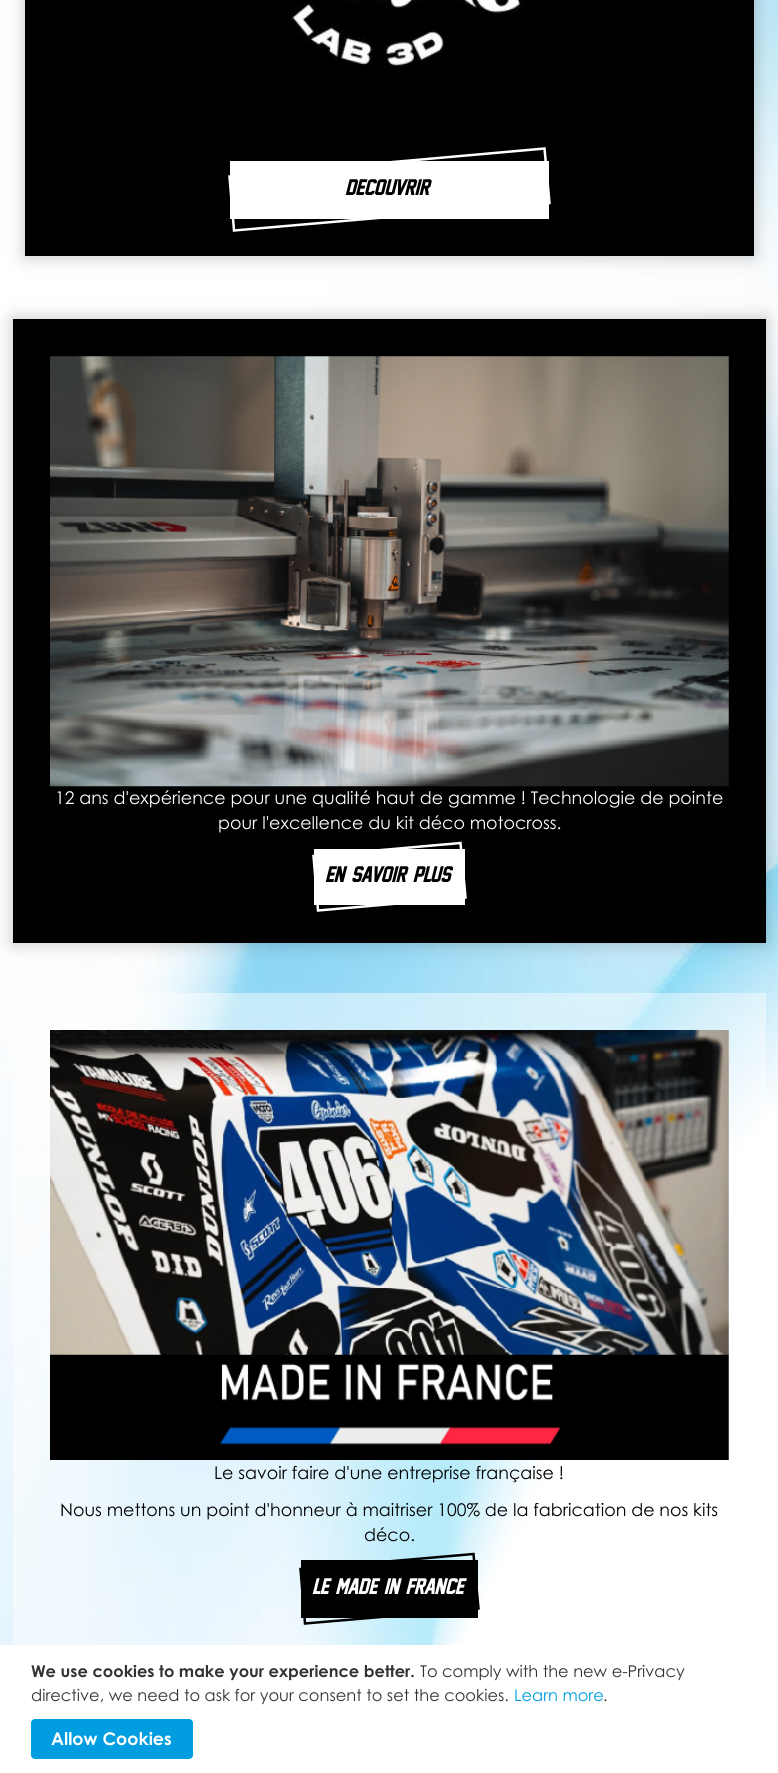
#include <cairo/cairo.h>
#include <math.h>
#include <stddef.h>


static void rounded_rect(cairo_t *cr, double x, double y, double w, double h, double r) {
  cairo_new_sub_path(cr);
  cairo_arc(cr, x + w - r, y + h - r, r, 0, M_PI / 2);
  cairo_arc(cr, x + r, y + h - r, r, M_PI / 2, M_PI);
  cairo_arc(cr, x + r, y + r, r, M_PI, 1.5 * M_PI);
  cairo_arc(cr, x + w - r, y + r, r, 1.5 * M_PI, 2 * M_PI);
  cairo_close_path(cr);
}

static void draw_shadow(cairo_t *cr, double x, double y, double w, double h, double r, double blur, double alpha) {
  cairo_push_group_with_content(cr, CAIRO_CONTENT_ALPHA);
  cairo_set_operator(cr, CAIRO_OPERATOR_SOURCE);
  for (int i = 15; i >= -15 && fmin(w, h) + blur * i / 3 > 0; i -= 2) {
    double e = blur * i / 6;
    cairo_set_source_rgba(cr, 0, 0, 0, alpha * erfc((i - 1) / 8.5) / 2);
    rounded_rect(cr, x - e, y - e, w + 2 * e, h + 2 * e, fmax(0, fmin(r + e + blur * .6, fmin(w, h) / 2 + e)));
    cairo_fill(cr);
  }
  cairo_pattern_t *soft = cairo_pop_group(cr);
  cairo_mask(cr, soft);
  cairo_pattern_destroy(soft);
}

static void draw_image(cairo_t *cr, const char *path, double x, double y, double w, double h) {
  cairo_surface_t *image = cairo_image_surface_create_from_png(path);
  cairo_save(cr);
  cairo_set_source_surface(cr, image, x, y);
  cairo_rectangle(cr, x, y, w, h);
  cairo_fill(cr);
  cairo_restore(cr);
  cairo_surface_destroy(image);
}

static void draw(cairo_t *cr) {
  cairo_set_source_rgb(cr, 1, 1, 1);
  cairo_paint(cr);
  draw_image(cr, "images/1.png", 0, 0, 778, 1645);
  cairo_set_source_rgb(cr, 41 / 255.0, 41 / 255.0, 41 / 255.0);
  draw_shadow(cr, 25, -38, 729, 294, 0, 12.5, 0.09);
  draw_shadow(cr, 25, -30, 729, 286, 0, 10, 0.08);
  draw_shadow(cr, 25, -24, 729, 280, 0, 8, 0.07);
  draw_shadow(cr, 25, -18, 729, 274, 0, 6, 0.06);
  cairo_set_source_rgb(cr, 0, 0, 0);
  cairo_rectangle(cr, 25, 0, 729, 256);
  cairo_fill(cr);
  draw_image(cr, "images/2.png", 289, 0, 235, 71);
  cairo_set_source_rgb(cr, 1, 1, 1);
  cairo_rectangle(cr, 230, 161, 319, 58);
  cairo_fill(cr);
  cairo_set_source_rgb(cr, 41 / 255.0, 41 / 255.0, 41 / 255.0);
  draw_shadow(cr, 13, 319, 753, 624, 0, 12.5, 0.09);
  draw_shadow(cr, 13, 319, 753, 624, 0, 10, 0.08);
  draw_shadow(cr, 13, 319, 753, 624, 0, 8, 0.07);
  draw_shadow(cr, 13, 319, 753, 624, 0, 6, 0.06);
  cairo_set_source_rgb(cr, 0, 0, 0);
  cairo_rectangle(cr, 13, 319, 753, 624);
  cairo_fill(cr);
  draw_image(cr, "images/3.png", 50, 356, 679, 431);
  cairo_set_source_rgb(cr, 1, 1, 1);
  cairo_rectangle(cr, 314, 849, 151, 56);
  cairo_fill(cr);
  draw_image(cr, "images/4.png", 50, 1030, 679, 430);
  cairo_set_source_rgb(cr, 0, 0, 0);
  cairo_rectangle(cr, 301, 1560, 177, 58);
  cairo_fill(cr);
  cairo_set_source_rgb(cr, 0, 157 / 255.0, 224 / 255.0);
  rounded_rect(cr, 31.5, 1719.5, 161, 39, 3.5);
  cairo_fill_preserve(cr);
  cairo_set_line_width(cr, 1);
  cairo_stroke(cr);
  cairo_select_font_face(cr, "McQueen", CAIRO_FONT_SLANT_NORMAL, CAIRO_FONT_WEIGHT_NORMAL);
  cairo_set_font_size(cr, 22.5);
  cairo_set_source_rgb(cr, 0, 0, 0);
  cairo_move_to(cr, 347, 195);
  cairo_show_text(cr, "DÉCOUVRIR");
  cairo_new_path(cr);
  cairo_move_to(cr, 229.5, 176.5);
  cairo_line_to(cr, 544.5, 148.5);
  cairo_line_to(cr, 549.5, 203);
  cairo_line_to(cr, 234, 230.5);
  cairo_close_path(cr);
  cairo_set_source_rgb(cr, 1, 1, 1);
  cairo_set_line_width(cr, 2.5);
  cairo_stroke(cr);
  cairo_select_font_face(cr, "Century Gothic", CAIRO_FONT_SLANT_NORMAL, CAIRO_FONT_WEIGHT_NORMAL);
  cairo_set_font_size(cr, 17.5);
  cairo_move_to(cr, 55, 804);
  cairo_show_text(cr, "12 ans d'expérience pour une qualité haut de gamme ! Technologie de pointe");
  cairo_move_to(cr, 218, 829);
  cairo_show_text(cr, "pour l'excellence du kit déco motocross.");
  cairo_select_font_face(cr, "McQueen", CAIRO_FONT_SLANT_NORMAL, CAIRO_FONT_WEIGHT_NORMAL);
  cairo_set_font_size(cr, 22.5);
  cairo_set_source_rgb(cr, 0, 0, 0);
  cairo_move_to(cr, 327, 882);
  cairo_show_text(cr, "EN SAVOIR PLUS");
  cairo_new_path(cr);
  cairo_move_to(cr, 313.5, 856);
  cairo_line_to(cr, 460.5, 843);
  cairo_line_to(cr, 465.5, 897.5);
  cairo_line_to(cr, 318, 910.5);
  cairo_close_path(cr);
  cairo_set_source_rgb(cr, 1, 1, 1);
  cairo_stroke(cr);
  cairo_select_font_face(cr, "Century Gothic", CAIRO_FONT_SLANT_NORMAL, CAIRO_FONT_WEIGHT_NORMAL);
  cairo_set_font_size(cr, 17.5);
  cairo_set_source_rgb(cr, 0, 0, 0);
  cairo_move_to(cr, 214, 1479);
  cairo_show_text(cr, "Le savoir faire d'une entreprise française !");
  cairo_move_to(cr, 60, 1516);
  cairo_show_text(cr, "Nous mettons un point d'honneur à maitriser 100% de la fabrication de nos kits");
  cairo_move_to(cr, 364, 1541);
  cairo_show_text(cr, "déco.");
  cairo_select_font_face(cr, "McQueen", CAIRO_FONT_SLANT_NORMAL, CAIRO_FONT_WEIGHT_NORMAL);
  cairo_set_font_size(cr, 22.5);
  cairo_set_source_rgb(cr, 1, 1, 1);
  cairo_move_to(cr, 314, 1594);
  cairo_show_text(cr, "LE MADE IN FRANCE");
  cairo_new_path(cr);
  cairo_move_to(cr, 300.5, 1569);
  cairo_line_to(cr, 473.5, 1554);
  cairo_line_to(cr, 478.5, 1608.5);
  cairo_line_to(cr, 305, 1623.5);
  cairo_close_path(cr);
  cairo_set_source_rgb(cr, 0, 0, 0);
  cairo_stroke(cr);
  cairo_select_font_face(cr, "Century Gothic", CAIRO_FONT_SLANT_NORMAL, CAIRO_FONT_WEIGHT_BOLD);
  cairo_set_font_size(cr, 16.25);
  cairo_set_source_rgb(cr, 51 / 255.0, 51 / 255.0, 51 / 255.0);
  cairo_move_to(cr, 31, 1677);
  cairo_show_text(cr, "We use cookies to make your experience better.");
  cairo_select_font_face(cr, "Century Gothic", CAIRO_FONT_SLANT_NORMAL, CAIRO_FONT_WEIGHT_NORMAL);
  cairo_move_to(cr, 420, 1677);
  cairo_show_text(cr, "To comply with the new e-Privacy");
  cairo_move_to(cr, 31, 1701);
  cairo_show_text(cr, "directive, we need to ask for your consent to set the cookies.");
  cairo_set_source_rgb(cr, 0, 157 / 255.0, 224 / 255.0);
  cairo_move_to(cr, 514, 1701);
  cairo_show_text(cr, "Learn more");
  cairo_set_source_rgb(cr, 51 / 255.0, 51 / 255.0, 51 / 255.0);
  cairo_move_to(cr, 603, 1701);
  cairo_show_text(cr, ".");
  cairo_select_font_face(cr, "Century Gothic", CAIRO_FONT_SLANT_NORMAL, CAIRO_FONT_WEIGHT_BOLD);
  cairo_set_font_size(cr, 17.5);
  cairo_set_source_rgb(cr, 1, 1, 1);
  cairo_move_to(cr, 51, 1745);
  cairo_show_text(cr, "Allow Cookies");
}

int main(void) {
  cairo_surface_t *surface = cairo_image_surface_create(CAIRO_FORMAT_RGB24, 778, 1773);
  cairo_t *cr = cairo_create(surface);
  cairo_font_options_t *options = cairo_font_options_create();
  cairo_font_options_set_hint_metrics(options, CAIRO_HINT_METRICS_OFF);
  cairo_font_options_set_hint_style(options, CAIRO_HINT_STYLE_NONE);
  cairo_set_font_options(cr, options);
  cairo_set_miter_limit(cr, 4);
  draw(cr);
  cairo_surface_write_to_png(surface, "out.png");
  cairo_font_options_destroy(options);
  cairo_destroy(cr);
  cairo_surface_destroy(surface);
  return 0;
}
